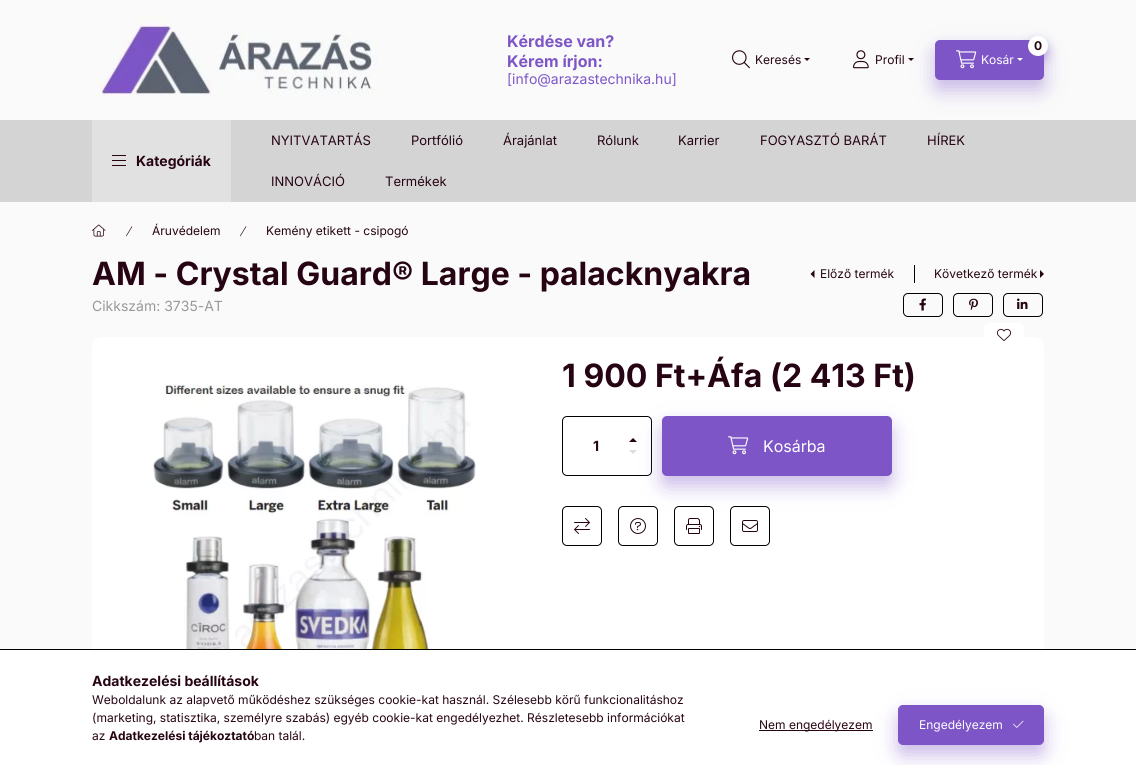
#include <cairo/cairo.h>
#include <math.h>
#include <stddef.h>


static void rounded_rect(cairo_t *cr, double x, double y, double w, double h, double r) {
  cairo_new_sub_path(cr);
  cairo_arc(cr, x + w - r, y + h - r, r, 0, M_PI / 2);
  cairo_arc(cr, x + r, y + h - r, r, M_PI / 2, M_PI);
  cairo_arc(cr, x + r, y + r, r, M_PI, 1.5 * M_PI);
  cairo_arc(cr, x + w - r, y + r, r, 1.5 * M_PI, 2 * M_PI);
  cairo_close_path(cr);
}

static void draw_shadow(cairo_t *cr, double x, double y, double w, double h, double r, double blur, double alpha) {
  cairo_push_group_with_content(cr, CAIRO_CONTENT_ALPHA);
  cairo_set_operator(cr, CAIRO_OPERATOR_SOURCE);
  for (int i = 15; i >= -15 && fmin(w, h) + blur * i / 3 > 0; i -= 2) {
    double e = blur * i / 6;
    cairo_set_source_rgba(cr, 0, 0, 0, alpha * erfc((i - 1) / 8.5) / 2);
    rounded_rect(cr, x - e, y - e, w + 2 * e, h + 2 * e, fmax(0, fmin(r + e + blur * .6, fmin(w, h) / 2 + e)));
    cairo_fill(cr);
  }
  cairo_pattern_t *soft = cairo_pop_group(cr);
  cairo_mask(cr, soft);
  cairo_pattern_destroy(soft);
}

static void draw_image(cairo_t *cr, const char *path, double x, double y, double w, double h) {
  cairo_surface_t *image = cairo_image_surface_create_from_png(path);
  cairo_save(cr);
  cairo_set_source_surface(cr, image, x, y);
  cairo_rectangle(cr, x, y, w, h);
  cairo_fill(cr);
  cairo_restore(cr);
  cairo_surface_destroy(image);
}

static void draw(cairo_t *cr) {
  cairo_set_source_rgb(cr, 250 / 255.0, 250 / 255.0, 250 / 255.0);
  cairo_paint(cr);
  draw_image(cr, "images/1.png", 92, 17, 286, 79);
  draw_image(cr, "images/2.png", 732, 50, 18, 19);
  cairo_set_source_rgb(cr, 38 / 255.0, 4 / 255.0, 19 / 255.0);
  cairo_new_path(cr);
  cairo_move_to(cr, 804, 58);
  cairo_line_to(cr, 810, 58);
  cairo_line_to(cr, 807, 61);
  cairo_close_path(cr);
  cairo_fill(cr);
  draw_image(cr, "images/3.png", 853, 50, 16, 19);
  cairo_set_source_rgb(cr, 212 / 255.0, 212 / 255.0, 213 / 255.0);
  cairo_rectangle(cr, 0, 120, 1136, 82);
  cairo_fill(cr);
  cairo_set_source_rgb(cr, 125 / 255.0, 85 / 255.0, 199 / 255.0);
  draw_shadow(cr, 935, 50, 109, 40, 5, 10, 0.4);
  cairo_set_source_rgb(cr, 38 / 255.0, 4 / 255.0, 19 / 255.0);
  cairo_new_path(cr);
  cairo_move_to(cr, 908, 58);
  cairo_line_to(cr, 914, 58);
  cairo_line_to(cr, 911, 61);
  cairo_close_path(cr);
  cairo_fill(cr);
  cairo_set_source_rgb(cr, 125 / 255.0, 85 / 255.0, 199 / 255.0);
  rounded_rect(cr, 935, 40, 109, 40, 5);
  cairo_fill(cr);
  cairo_set_source_rgb(cr, 125 / 255.0, 85 / 255.0, 199 / 255.0);
  draw_shadow(cr, 1028, 41, 20, 20, 10, 5, 0.4);
  cairo_set_source_rgb(cr, 1, 1, 1);
  cairo_arc(cr, 1038, 46, 10, 0, 2 * M_PI);
  cairo_fill(cr);
  draw_image(cr, "images/4.png", 956, 50, 21, 19);
  cairo_new_path(cr);
  cairo_move_to(cr, 1017, 58);
  cairo_line_to(cr, 1023, 58);
  cairo_line_to(cr, 1020, 61);
  cairo_close_path(cr);
  cairo_fill(cr);
  cairo_set_source_rgb(cr, 225 / 255.0, 225 / 255.0, 226 / 255.0);
  cairo_rectangle(cr, 92, 120, 139, 82);
  cairo_fill(cr);
  cairo_set_source_rgb(cr, 38 / 255.0, 4 / 255.0, 19 / 255.0);
  cairo_rectangle(cr, 112, 155, 14, 1);
  cairo_fill(cr);
  cairo_rectangle(cr, 112, 160, 14, 1);
  cairo_fill(cr);
  cairo_rectangle(cr, 112, 165, 14, 1);
  cairo_fill(cr);
  draw_image(cr, "images/5.png", 92, 224, 14, 13);
  draw_image(cr, "images/6.png", 126, 226, 7, 11);
  draw_image(cr, "images/6.png", 240, 226, 7, 11);
  cairo_new_path(cr);
  cairo_move_to(cr, 814.5, 278);
  cairo_line_to(cr, 814.5, 270);
  cairo_line_to(cr, 810.5, 274);
  cairo_close_path(cr);
  cairo_fill(cr);
  cairo_set_source_rgb(cr, 2 / 255.0, 2 / 255.0, 2 / 255.0);
  cairo_rectangle(cr, 914, 265, 1, 18);
  cairo_fill(cr);
  cairo_set_source_rgb(cr, 38 / 255.0, 4 / 255.0, 19 / 255.0);
  cairo_new_path(cr);
  cairo_move_to(cr, 1040, 278);
  cairo_line_to(cr, 1040, 270);
  cairo_line_to(cr, 1044, 274);
  cairo_close_path(cr);
  cairo_fill(cr);
  rounded_rect(cr, 903.5, 293.5, 39, 23, 4.5);
  cairo_set_source_rgb(cr, 2 / 255.0, 2 / 255.0, 2 / 255.0);
  cairo_set_line_width(cr, 1);
  cairo_stroke(cr);
  draw_image(cr, "images/7.png", 919, 298, 7, 13);
  rounded_rect(cr, 953.5, 293.5, 39, 23, 4.5);
  cairo_stroke(cr);
  draw_image(cr, "images/8.png", 969, 298, 9, 13);
  rounded_rect(cr, 1003.5, 293.5, 39, 23, 4.5);
  cairo_stroke(cr);
  draw_image(cr, "images/9.png", 1017, 298, 11, 11);
  cairo_set_source_rgb(cr, 1, 1, 1);
  rounded_rect(cr, 92, 337, 952, 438, 10);
  cairo_fill(cr);
  rounded_rect(cr, 984, 323, 40, 24, 5);
  cairo_fill(cr);
  draw_image(cr, "images/10.png", 997, 328, 14, 13);
  draw_image(cr, "images/11.png", 151, 383, 325, 266);
  rounded_rect(cr, 562.5, 416.5, 89, 59, 4.5);
  cairo_set_source_rgb(cr, 2 / 255.0, 2 / 255.0, 2 / 255.0);
  cairo_stroke(cr);
  cairo_set_source_rgb(cr, 38 / 255.0, 4 / 255.0, 19 / 255.0);
  cairo_new_path(cr);
  cairo_move_to(cr, 637, 442);
  cairo_line_to(cr, 629, 442);
  cairo_line_to(cr, 633, 438);
  cairo_close_path(cr);
  cairo_fill(cr);
  cairo_set_source_rgb(cr, 221 / 255.0, 221 / 255.0, 221 / 255.0);
  cairo_new_path(cr);
  cairo_move_to(cr, 629, 450);
  cairo_line_to(cr, 637, 450);
  cairo_line_to(cr, 633, 454);
  cairo_close_path(cr);
  cairo_fill(cr);
  cairo_set_source_rgb(cr, 125 / 255.0, 85 / 255.0, 199 / 255.0);
  draw_shadow(cr, 662, 426, 230, 60, 5, 10, 0.4);
  cairo_set_source_rgb(cr, 125 / 255.0, 85 / 255.0, 199 / 255.0);
  rounded_rect(cr, 662, 416, 230, 60, 5);
  cairo_fill(cr);
  draw_image(cr, "images/4.png", 728, 436, 21, 19);
  rounded_rect(cr, 562.5, 506.5, 39, 39, 4.5);
  cairo_set_source_rgb(cr, 2 / 255.0, 2 / 255.0, 2 / 255.0);
  cairo_stroke(cr);
  draw_image(cr, "images/12.png", 574, 518, 16, 16);
  rounded_rect(cr, 618.5, 506.5, 39, 39, 4.5);
  cairo_stroke(cr);
  draw_image(cr, "images/13.png", 630, 518, 16, 16);
  rounded_rect(cr, 674.5, 506.5, 39, 39, 4.5);
  cairo_stroke(cr);
  draw_image(cr, "images/14.png", 686, 518, 16, 16);
  rounded_rect(cr, 730.5, 506.5, 39, 39, 4.5);
  cairo_stroke(cr);
  draw_image(cr, "images/15.png", 742, 520, 16, 12);
  cairo_set_source_rgb(cr, 1, 1, 1);
  cairo_rectangle(cr, 0, 650, 1136, 115);
  cairo_fill(cr);
  cairo_set_source_rgb(cr, 2 / 255.0, 2 / 255.0, 2 / 255.0);
  cairo_rectangle(cr, 0, 649, 1136, 1);
  cairo_fill(cr);
  cairo_set_source_rgb(cr, 38 / 255.0, 4 / 255.0, 19 / 255.0);
  cairo_rectangle(cr, 759, 730, 114, 1);
  cairo_fill(cr);
  cairo_set_source_rgb(cr, 125 / 255.0, 85 / 255.0, 199 / 255.0);
  draw_shadow(cr, 898, 715, 146, 40, 5, 10, 0.4);
  cairo_set_source_rgb(cr, 125 / 255.0, 85 / 255.0, 199 / 255.0);
  rounded_rect(cr, 898.5, 705.5, 145, 39, 4.5);
  cairo_fill_preserve(cr);
  cairo_stroke(cr);
  draw_image(cr, "images/16.png", 1013, 720, 11, 8);
  cairo_select_font_face(cr, "Inter", CAIRO_FONT_SLANT_NORMAL, CAIRO_FONT_WEIGHT_BOLD);
  cairo_set_font_size(cr, 16);
  cairo_move_to(cr, 507, 47);
  cairo_show_text(cr, "Kérdése van?");
  cairo_move_to(cr, 507, 67);
  cairo_show_text(cr, "Kérem írjon:");
  cairo_select_font_face(cr, "Inter", CAIRO_FONT_SLANT_NORMAL, CAIRO_FONT_WEIGHT_NORMAL);
  cairo_set_font_size(cr, 14);
  cairo_move_to(cr, 507, 84);
  cairo_show_text(cr, "[info@arazastechnika.hu]");
  cairo_set_font_size(cr, 12);
  cairo_set_source_rgb(cr, 38 / 255.0, 4 / 255.0, 19 / 255.0);
  cairo_move_to(cr, 755, 64);
  cairo_show_text(cr, "Keresés");
  cairo_move_to(cr, 875, 64);
  cairo_show_text(cr, "Profil");
  cairo_select_font_face(cr, "Inter", CAIRO_FONT_SLANT_NORMAL, CAIRO_FONT_WEIGHT_BOLD);
  cairo_move_to(cr, 1034, 50);
  cairo_show_text(cr, "0");
  cairo_select_font_face(cr, "Inter", CAIRO_FONT_SLANT_NORMAL, CAIRO_FONT_WEIGHT_NORMAL);
  cairo_set_source_rgb(cr, 1, 1, 1);
  cairo_move_to(cr, 981, 64);
  cairo_show_text(cr, "Kosár");
  cairo_select_font_face(cr, "Inter", CAIRO_FONT_SLANT_NORMAL, CAIRO_FONT_WEIGHT_BOLD);
  cairo_set_font_size(cr, 14);
  cairo_set_source_rgb(cr, 38 / 255.0, 4 / 255.0, 19 / 255.0);
  cairo_move_to(cr, 136, 166);
  cairo_show_text(cr, "Kategóriák");
  cairo_select_font_face(cr, "Inter", CAIRO_FONT_SLANT_NORMAL, CAIRO_FONT_WEIGHT_NORMAL);
  cairo_set_font_size(cr, 13);
  cairo_move_to(cr, 271, 145);
  cairo_show_text(cr, "NYITVATARTÁS");
  cairo_move_to(cr, 411, 145);
  cairo_show_text(cr, "Portfólió");
  cairo_move_to(cr, 503, 145);
  cairo_show_text(cr, "Árajánlat");
  cairo_move_to(cr, 597, 145);
  cairo_show_text(cr, "Rólunk");
  cairo_move_to(cr, 678, 145);
  cairo_show_text(cr, "Karrier");
  cairo_move_to(cr, 760, 145);
  cairo_show_text(cr, "FOGYASZTÓ BARÁT");
  cairo_move_to(cr, 927, 145);
  cairo_show_text(cr, "HÍREK");
  cairo_move_to(cr, 271, 186);
  cairo_show_text(cr, "INNOVÁCIÓ");
  cairo_move_to(cr, 385, 186);
  cairo_show_text(cr, "Termékek");
  cairo_set_font_size(cr, 12);
  cairo_move_to(cr, 152, 235);
  cairo_show_text(cr, "Áruvédelem");
  cairo_move_to(cr, 266, 235);
  cairo_show_text(cr, "Kemény etikett - csipogó");
  cairo_select_font_face(cr, "Inter", CAIRO_FONT_SLANT_NORMAL, CAIRO_FONT_WEIGHT_BOLD);
  cairo_set_font_size(cr, 32);
  cairo_move_to(cr, 92, 285);
  cairo_show_text(cr, "AM - Crystal Guard® Large - palacknyakra");
  cairo_select_font_face(cr, "Inter", CAIRO_FONT_SLANT_NORMAL, CAIRO_FONT_WEIGHT_NORMAL);
  cairo_set_font_size(cr, 12);
  cairo_move_to(cr, 820, 278);
  cairo_show_text(cr, "Előző termék");
  cairo_move_to(cr, 934, 278);
  cairo_show_text(cr, "Következő termék");
  cairo_set_font_size(cr, 14);
  cairo_set_source_rgb(cr, 153 / 255.0, 153 / 255.0, 153 / 255.0);
  cairo_move_to(cr, 92, 311);
  cairo_show_text(cr, "Cikkszám: 3735-AT");
  cairo_select_font_face(cr, "Inter", CAIRO_FONT_SLANT_NORMAL, CAIRO_FONT_WEIGHT_BOLD);
  cairo_set_font_size(cr, 32);
  cairo_set_source_rgb(cr, 38 / 255.0, 4 / 255.0, 19 / 255.0);
  cairo_move_to(cr, 562, 387);
  cairo_show_text(cr, "1 900 Ft+Áfa (2 413 Ft)");
  cairo_set_font_size(cr, 14);
  cairo_move_to(cr, 593, 451);
  cairo_show_text(cr, "1");
  cairo_select_font_face(cr, "Inter", CAIRO_FONT_SLANT_NORMAL, CAIRO_FONT_WEIGHT_NORMAL);
  cairo_set_font_size(cr, 16);
  cairo_set_source_rgb(cr, 1, 1, 1);
  cairo_move_to(cr, 763, 452);
  cairo_show_text(cr, "Kosárba");
  cairo_select_font_face(cr, "Inter", CAIRO_FONT_SLANT_NORMAL, CAIRO_FONT_WEIGHT_BOLD);
  cairo_set_font_size(cr, 14);
  cairo_set_source_rgb(cr, 38 / 255.0, 4 / 255.0, 19 / 255.0);
  cairo_move_to(cr, 92, 686);
  cairo_show_text(cr, "Adatkezelési beállítások");
  cairo_select_font_face(cr, "Inter", CAIRO_FONT_SLANT_NORMAL, CAIRO_FONT_WEIGHT_NORMAL);
  cairo_set_font_size(cr, 12);
  cairo_move_to(cr, 92, 704);
  cairo_show_text(cr, "Weboldalunk az alapvető működéshez szükséges cookie-kat használ. Szélesebb körű funkcionalitáshoz");
  cairo_move_to(cr, 92, 722);
  cairo_show_text(cr, "(marketing, statisztika, személyre szabás) egyéb cookie-kat engedélyezhet. Részletesebb információkat");
  cairo_move_to(cr, 92, 740);
  cairo_show_text(cr, "az");
  cairo_select_font_face(cr, "Inter", CAIRO_FONT_SLANT_NORMAL, CAIRO_FONT_WEIGHT_BOLD);
  cairo_move_to(cr, 109, 740);
  cairo_show_text(cr, "Adatkezelési tájékoztató");
  cairo_select_font_face(cr, "Inter", CAIRO_FONT_SLANT_NORMAL, CAIRO_FONT_WEIGHT_NORMAL);
  cairo_move_to(cr, 254, 740);
  cairo_show_text(cr, "ban talál.");
  cairo_move_to(cr, 759, 729);
  cairo_show_text(cr, "Nem engedélyezem");
  cairo_set_source_rgb(cr, 1, 1, 1);
  cairo_move_to(cr, 919, 729);
  cairo_show_text(cr, "Engedélyezem");
}

int main(void) {
  cairo_surface_t *surface = cairo_image_surface_create(CAIRO_FORMAT_RGB24, 1136, 765);
  cairo_t *cr = cairo_create(surface);
  cairo_font_options_t *options = cairo_font_options_create();
  cairo_font_options_set_hint_metrics(options, CAIRO_HINT_METRICS_OFF);
  cairo_font_options_set_hint_style(options, CAIRO_HINT_STYLE_NONE);
  cairo_set_font_options(cr, options);
  cairo_set_miter_limit(cr, 4);
  draw(cr);
  cairo_surface_write_to_png(surface, "out.png");
  cairo_font_options_destroy(options);
  cairo_destroy(cr);
  cairo_surface_destroy(surface);
  return 0;
}
